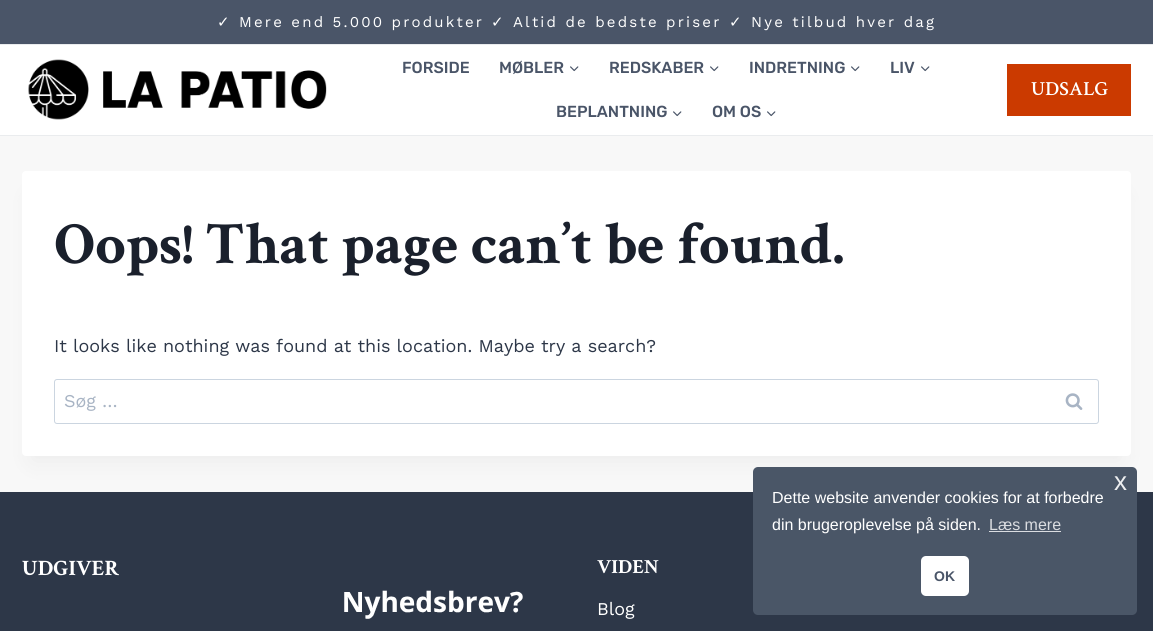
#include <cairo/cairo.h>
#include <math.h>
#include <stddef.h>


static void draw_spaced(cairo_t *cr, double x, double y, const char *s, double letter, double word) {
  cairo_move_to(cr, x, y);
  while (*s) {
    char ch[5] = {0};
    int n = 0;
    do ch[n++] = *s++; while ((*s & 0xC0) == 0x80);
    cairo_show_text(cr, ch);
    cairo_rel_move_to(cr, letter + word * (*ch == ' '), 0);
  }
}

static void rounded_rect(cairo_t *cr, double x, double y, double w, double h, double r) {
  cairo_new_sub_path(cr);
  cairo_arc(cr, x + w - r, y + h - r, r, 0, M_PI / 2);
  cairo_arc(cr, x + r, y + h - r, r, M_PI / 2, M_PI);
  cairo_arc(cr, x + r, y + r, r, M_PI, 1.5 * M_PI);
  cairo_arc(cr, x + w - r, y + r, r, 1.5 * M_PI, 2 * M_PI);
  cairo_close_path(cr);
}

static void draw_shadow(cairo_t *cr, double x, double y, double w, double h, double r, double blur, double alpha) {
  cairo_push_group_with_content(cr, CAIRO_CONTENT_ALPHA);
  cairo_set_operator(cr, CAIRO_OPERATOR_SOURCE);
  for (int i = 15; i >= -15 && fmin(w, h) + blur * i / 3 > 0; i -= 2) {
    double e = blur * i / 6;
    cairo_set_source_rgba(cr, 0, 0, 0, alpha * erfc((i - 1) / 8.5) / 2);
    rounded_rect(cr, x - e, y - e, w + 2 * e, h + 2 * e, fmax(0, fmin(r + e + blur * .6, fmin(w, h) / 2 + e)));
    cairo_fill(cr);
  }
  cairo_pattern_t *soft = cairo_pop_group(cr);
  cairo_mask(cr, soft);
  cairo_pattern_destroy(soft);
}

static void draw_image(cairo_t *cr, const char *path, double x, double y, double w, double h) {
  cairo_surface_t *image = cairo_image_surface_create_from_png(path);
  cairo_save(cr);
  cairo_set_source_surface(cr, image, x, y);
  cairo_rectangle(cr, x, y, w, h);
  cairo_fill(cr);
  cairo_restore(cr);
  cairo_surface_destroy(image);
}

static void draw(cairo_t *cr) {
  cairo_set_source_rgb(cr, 248 / 255.0, 248 / 255.0, 248 / 255.0);
  cairo_paint(cr);
  cairo_set_source_rgb(cr, 1, 1, 1);
  cairo_rectangle(cr, 0, 45, 1153, 90);
  cairo_fill(cr);
  cairo_set_source_rgb(cr, 74 / 255.0, 85 / 255.0, 104 / 255.0);
  cairo_rectangle(cr, 0, 0, 1153, 44);
  cairo_fill(cr);
  cairo_set_source_rgb(cr, 234 / 255.0, 236 / 255.0, 238 / 255.0);
  cairo_rectangle(cr, 0, 44, 1153, 1);
  cairo_fill(cr);
  cairo_rectangle(cr, 0, 135, 1153, 1);
  cairo_fill(cr);
  draw_image(cr, "images/1.png", 28, 59, 299, 61);
  draw_image(cr, "images/2.png", 570, 66, 9, 6);
  draw_image(cr, "images/2.png", 710, 66, 9, 6);
  draw_image(cr, "images/2.png", 851, 66, 9, 6);
  draw_image(cr, "images/2.png", 921, 66, 9, 6);
  draw_image(cr, "images/2.png", 673, 111, 9, 6);
  draw_image(cr, "images/2.png", 767, 111, 9, 6);
  cairo_set_source_rgb(cr, 203 / 255.0, 58 / 255.0, 0);
  cairo_rectangle(cr, 1007, 64, 124, 52);
  cairo_fill(cr);
  cairo_set_source_rgb(cr, 45 / 255.0, 55 / 255.0, 72 / 255.0);
  cairo_rectangle(cr, 0, 492, 1153, 139);
  cairo_fill(cr);
  cairo_set_source_rgb(cr, 0, 0, 0);
  draw_shadow(cr, 32, 196, 1089, 265, 0, 12.5, 0.05);
  cairo_set_source_rgb(cr, 1, 1, 1);
  rounded_rect(cr, 22, 171, 1109, 285, 4);
  cairo_fill(cr);
  rounded_rect(cr, 54.5, 379.5, 1044, 44, 2.5);
  cairo_set_source_rgb(cr, 203 / 255.0, 213 / 255.0, 224 / 255.0);
  cairo_set_line_width(cr, 1);
  cairo_stroke(cr);
  draw_image(cr, "images/3.png", 1065, 393, 18, 17);
  draw_image(cr, "images/4.png", 344, 590, 179, 29);
  cairo_set_source_rgb(cr, 74 / 255.0, 86 / 255.0, 103 / 255.0);
  rounded_rect(cr, 753, 467, 384, 148, 5);
  cairo_fill(cr);
  cairo_set_source_rgb(cr, 219 / 255.0, 221 / 255.0, 225 / 255.0);
  cairo_rectangle(cr, 989, 531, 72, 1);
  cairo_fill(cr);
  cairo_set_source_rgb(cr, 1, 1, 1);
  rounded_rect(cr, 921, 556, 48, 40, 5);
  cairo_fill(cr);
  cairo_select_font_face(cr, "DejaVu Sans", CAIRO_FONT_SLANT_NORMAL, CAIRO_FONT_WEIGHT_NORMAL);
  cairo_set_font_size(cr, 15);
  draw_spaced(cr, 217, 27, "✓", 2.2, 0);
  cairo_select_font_face(cr, "Work Sans", CAIRO_FONT_SLANT_NORMAL, CAIRO_FONT_WEIGHT_NORMAL);
  draw_spaced(cr, 239, 27, "Mere end 5.000 produkter", 2.2, 0);
  cairo_select_font_face(cr, "DejaVu Sans", CAIRO_FONT_SLANT_NORMAL, CAIRO_FONT_WEIGHT_NORMAL);
  draw_spaced(cr, 491, 27, "✓", 2.2, 0);
  cairo_select_font_face(cr, "Work Sans", CAIRO_FONT_SLANT_NORMAL, CAIRO_FONT_WEIGHT_NORMAL);
  draw_spaced(cr, 513, 27, "Altid de bedste priser", 2.2, 0);
  cairo_select_font_face(cr, "DejaVu Sans", CAIRO_FONT_SLANT_NORMAL, CAIRO_FONT_WEIGHT_NORMAL);
  draw_spaced(cr, 729, 27, "✓", 2.2, 0);
  cairo_select_font_face(cr, "Work Sans", CAIRO_FONT_SLANT_NORMAL, CAIRO_FONT_WEIGHT_NORMAL);
  draw_spaced(cr, 751, 27, "Nye tilbud hver dag", 2.2, 0);
  cairo_select_font_face(cr, "Rubik Medium", CAIRO_FONT_SLANT_NORMAL, CAIRO_FONT_WEIGHT_NORMAL);
  cairo_set_font_size(cr, 16);
  cairo_set_source_rgb(cr, 74 / 255.0, 85 / 255.0, 104 / 255.0);
  cairo_move_to(cr, 402, 73);
  cairo_show_text(cr, "FORSIDE");
  cairo_move_to(cr, 499, 73);
  cairo_show_text(cr, "MØBLER");
  cairo_move_to(cr, 609, 73);
  cairo_show_text(cr, "REDSKABER");
  cairo_move_to(cr, 749, 73);
  cairo_show_text(cr, "INDRETNING");
  cairo_move_to(cr, 890, 73);
  cairo_show_text(cr, "LIV");
  cairo_move_to(cr, 556, 117);
  cairo_show_text(cr, "BEPLANTNING");
  cairo_move_to(cr, 712, 117);
  cairo_show_text(cr, "OM OS");
  cairo_select_font_face(cr, "Crimson Text SemiBold", CAIRO_FONT_SLANT_NORMAL, CAIRO_FONT_WEIGHT_NORMAL);
  cairo_set_font_size(cr, 20);
  cairo_set_source_rgb(cr, 1, 1, 1);
  cairo_move_to(cr, 1031, 95);
  cairo_show_text(cr, "UDSALG");
  cairo_select_font_face(cr, "Crimson Text", CAIRO_FONT_SLANT_NORMAL, CAIRO_FONT_WEIGHT_BOLD);
  cairo_set_font_size(cr, 60);
  cairo_set_source_rgb(cr, 26 / 255.0, 32 / 255.0, 44 / 255.0);
  cairo_move_to(cr, 54, 263);
  cairo_show_text(cr, "Oops! That page can’t be found.");
  cairo_select_font_face(cr, "Work Sans", CAIRO_FONT_SLANT_NORMAL, CAIRO_FONT_WEIGHT_NORMAL);
  cairo_set_font_size(cr, 18);
  cairo_set_source_rgb(cr, 45 / 255.0, 55 / 255.0, 72 / 255.0);
  cairo_move_to(cr, 54, 352);
  cairo_show_text(cr, "It looks like nothing was found at this location. Maybe try a search?");
  cairo_set_source_rgb(cr, 168 / 255.0, 180 / 255.0, 196 / 255.0);
  cairo_move_to(cr, 64, 407);
  cairo_show_text(cr, "Søg …");
  cairo_select_font_face(cr, "Crimson Text", CAIRO_FONT_SLANT_NORMAL, CAIRO_FONT_WEIGHT_BOLD);
  cairo_set_font_size(cr, 22);
  cairo_set_source_rgb(cr, 1, 1, 1);
  cairo_move_to(cr, 22, 575);
  cairo_show_text(cr, "UDGIVER");
  cairo_set_font_size(cr, 20);
  cairo_move_to(cr, 597, 573);
  cairo_show_text(cr, "VIDEN");
  cairo_select_font_face(cr, "Work Sans", CAIRO_FONT_SLANT_NORMAL, CAIRO_FONT_WEIGHT_NORMAL);
  cairo_set_font_size(cr, 18);
  cairo_move_to(cr, 597, 615);
  cairo_show_text(cr, "Blog");
  cairo_select_font_face(cr, "Liberation Sans", CAIRO_FONT_SLANT_NORMAL, CAIRO_FONT_WEIGHT_NORMAL);
  cairo_set_font_size(cr, 26);
  cairo_set_source_rgb(cr, 237 / 255.0, 238 / 255.0, 240 / 255.0);
  cairo_move_to(cr, 1114, 490);
  cairo_show_text(cr, "x");
  cairo_set_font_size(cr, 16);
  cairo_set_source_rgb(cr, 1, 1, 1);
  cairo_move_to(cr, 772, 503);
  cairo_show_text(cr, "Dette website anvender cookies for at forbedre");
  cairo_move_to(cr, 772, 530);
  cairo_show_text(cr, "din brugeroplevelse på siden.");
  cairo_set_source_rgb(cr, 219 / 255.0, 221 / 255.0, 225 / 255.0);
  cairo_move_to(cr, 989, 530);
  cairo_show_text(cr, "Læs mere");
  cairo_select_font_face(cr, "Liberation Sans", CAIRO_FONT_SLANT_NORMAL, CAIRO_FONT_WEIGHT_BOLD);
  cairo_set_font_size(cr, 14);
  cairo_set_source_rgb(cr, 74 / 255.0, 85 / 255.0, 104 / 255.0);
  cairo_move_to(cr, 934, 581);
  cairo_show_text(cr, "OK");
}

int main(void) {
  cairo_surface_t *surface = cairo_image_surface_create(CAIRO_FORMAT_RGB24, 1153, 631);
  cairo_t *cr = cairo_create(surface);
  cairo_font_options_t *options = cairo_font_options_create();
  cairo_font_options_set_hint_metrics(options, CAIRO_HINT_METRICS_OFF);
  cairo_font_options_set_hint_style(options, CAIRO_HINT_STYLE_NONE);
  cairo_set_font_options(cr, options);
  cairo_set_miter_limit(cr, 4);
  draw(cr);
  cairo_surface_write_to_png(surface, "out.png");
  cairo_font_options_destroy(options);
  cairo_destroy(cr);
  cairo_surface_destroy(surface);
  return 0;
}
